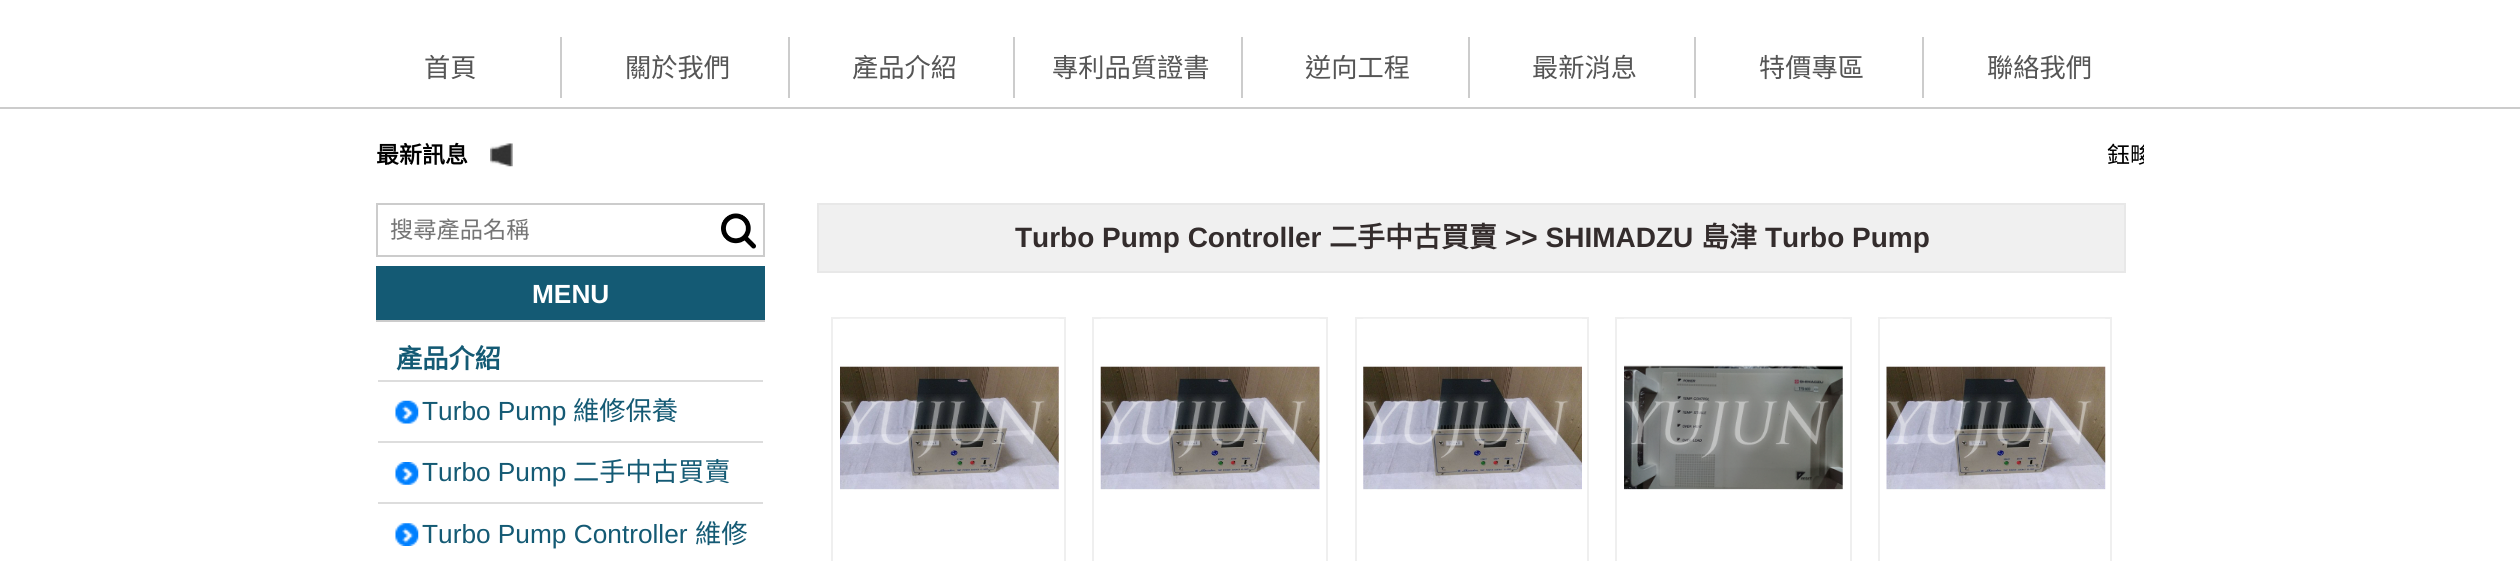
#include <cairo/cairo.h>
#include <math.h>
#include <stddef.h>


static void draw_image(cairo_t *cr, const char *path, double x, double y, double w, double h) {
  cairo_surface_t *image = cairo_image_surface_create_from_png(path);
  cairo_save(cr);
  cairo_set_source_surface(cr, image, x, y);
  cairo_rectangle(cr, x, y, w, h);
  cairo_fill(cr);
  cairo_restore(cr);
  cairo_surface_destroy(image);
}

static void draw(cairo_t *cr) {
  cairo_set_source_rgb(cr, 1, 1, 1);
  cairo_paint(cr);
  cairo_set_source_rgb(cr, 204 / 255.0, 204 / 255.0, 204 / 255.0);
  cairo_rectangle(cr, 0, 107, 2520, 2);
  cairo_fill(cr);
  cairo_rectangle(cr, 560, 37, 2, 61);
  cairo_fill(cr);
  cairo_rectangle(cr, 788, 37, 2, 61);
  cairo_fill(cr);
  cairo_rectangle(cr, 1013, 37, 2, 61);
  cairo_fill(cr);
  cairo_rectangle(cr, 1241, 37, 2, 61);
  cairo_fill(cr);
  cairo_rectangle(cr, 1468, 37, 2, 61);
  cairo_fill(cr);
  cairo_rectangle(cr, 1694, 37, 2, 61);
  cairo_fill(cr);
  cairo_rectangle(cr, 1922, 37, 2, 61);
  cairo_fill(cr);
  draw_image(cr, "images/1.png", 490, 143, 23, 24);
  cairo_rectangle(cr, 377, 204, 387, 52);
  cairo_stroke(cr);
  draw_image(cr, "images/2.png", 721, 213, 35, 36);
  cairo_set_source_rgb(cr, 20 / 255.0, 90 / 255.0, 116 / 255.0);
  cairo_rectangle(cr, 376, 266, 389, 54);
  cairo_fill(cr);
  cairo_set_source_rgb(cr, 204 / 255.0, 204 / 255.0, 204 / 255.0);
  cairo_rectangle(cr, 376, 320, 389, 2);
  cairo_fill(cr);
  cairo_set_source_rgb(cr, 221 / 255.0, 221 / 255.0, 221 / 255.0);
  cairo_rectangle(cr, 378, 380, 385, 2);
  cairo_fill(cr);
  draw_image(cr, "images/3.png", 395, 400, 24, 24);
  cairo_rectangle(cr, 378, 441, 385, 2);
  cairo_fill(cr);
  draw_image(cr, "images/4.png", 395, 462, 24, 23);
  cairo_rectangle(cr, 378, 502, 385, 2);
  cairo_fill(cr);
  draw_image(cr, "images/5.png", 395, 523, 24, 23);
  cairo_set_source_rgb(cr, 240 / 255.0, 240 / 255.0, 240 / 255.0);
  cairo_rectangle(cr, 818, 204, 1307, 68);
  cairo_fill_preserve(cr);
  cairo_set_source_rgb(cr, 232 / 255.0, 232 / 255.0, 232 / 255.0);
  cairo_stroke(cr);
  cairo_rectangle(cr, 832, 318, 233, 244);
  cairo_set_source_rgb(cr, 239 / 255.0, 239 / 255.0, 239 / 255.0);
  cairo_stroke(cr);
  draw_image(cr, "images/6.png", 840, 318, 219, 172);
  draw_image(cr, "images/7.png", 840, 394, 208, 67);
  cairo_rectangle(cr, 1093, 318, 234, 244);
  cairo_stroke(cr);
  draw_image(cr, "images/8.png", 1100, 318, 220, 172);
  draw_image(cr, "images/9.png", 1101, 394, 208, 67);
  cairo_rectangle(cr, 1356, 318, 232, 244);
  cairo_stroke(cr);
  draw_image(cr, "images/10.png", 1363, 318, 219, 172);
  draw_image(cr, "images/11.png", 1363, 394, 208, 67);
  cairo_rectangle(cr, 1616, 318, 235, 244);
  cairo_stroke(cr);
  draw_image(cr, "images/12.png", 1624, 318, 219, 172);
  draw_image(cr, "images/13.png", 1624, 394, 208, 67);
  cairo_rectangle(cr, 1879, 318, 232, 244);
  cairo_stroke(cr);
  draw_image(cr, "images/14.png", 1886, 318, 220, 172);
  draw_image(cr, "images/15.png", 1886, 394, 208, 67);
  cairo_select_font_face(cr, "Noto Sans CJK TC", CAIRO_FONT_SLANT_NORMAL, CAIRO_FONT_WEIGHT_NORMAL);
  cairo_set_font_size(cr, 26.25);
  cairo_set_source_rgb(cr, 85 / 255.0, 85 / 255.0, 85 / 255.0);
  cairo_move_to(cr, 424, 77);
  cairo_show_text(cr, "首頁");
  cairo_move_to(cr, 625, 77);
  cairo_show_text(cr, "關於我們");
  cairo_move_to(cr, 852, 77);
  cairo_show_text(cr, "產品介紹");
  cairo_move_to(cr, 1052, 77);
  cairo_show_text(cr, "專利品質證書");
  cairo_move_to(cr, 1305, 77);
  cairo_show_text(cr, "逆向工程");
  cairo_move_to(cr, 1532, 77);
  cairo_show_text(cr, "最新消息");
  cairo_move_to(cr, 1759, 77);
  cairo_show_text(cr, "特價專區");
  cairo_move_to(cr, 1987, 77);
  cairo_show_text(cr, "聯絡我們");
  cairo_select_font_face(cr, "Noto Sans CJK TC", CAIRO_FONT_SLANT_NORMAL, CAIRO_FONT_WEIGHT_BOLD);
  cairo_set_font_size(cr, 23);
  cairo_set_source_rgb(cr, 0, 0, 0);
  cairo_move_to(cr, 376, 163);
  cairo_show_text(cr, "最新訊息");
  cairo_save(cr);
  cairo_rectangle(cr, 553, 135, 1591, 42);
  cairo_clip(cr);
  cairo_select_font_face(cr, "Noto Sans CJK TC", CAIRO_FONT_SLANT_NORMAL, CAIRO_FONT_WEIGHT_NORMAL);
  cairo_move_to(cr, 2107, 163);
  cairo_show_text(cr, "鈺畯");
  cairo_restore(cr);
  cairo_select_font_face(cr, "Noto Sans CJK TC", CAIRO_FONT_SLANT_NORMAL, CAIRO_FONT_WEIGHT_NORMAL);
  cairo_set_font_size(cr, 23.25);
  cairo_set_source_rgb(cr, 117 / 255.0, 117 / 255.0, 117 / 255.0);
  cairo_move_to(cr, 390, 238);
  cairo_show_text(cr, "搜尋產品名稱");
  cairo_select_font_face(cr, "Liberation Sans", CAIRO_FONT_SLANT_NORMAL, CAIRO_FONT_WEIGHT_BOLD);
  cairo_set_font_size(cr, 26.25);
  cairo_set_source_rgb(cr, 1, 1, 1);
  cairo_move_to(cr, 532, 303);
  cairo_show_text(cr, "MENU");
  cairo_select_font_face(cr, "Noto Sans CJK TC", CAIRO_FONT_SLANT_NORMAL, CAIRO_FONT_WEIGHT_BOLD);
  cairo_set_source_rgb(cr, 20 / 255.0, 90 / 255.0, 116 / 255.0);
  cairo_move_to(cr, 396, 368);
  cairo_show_text(cr, "產品介紹");
  cairo_select_font_face(cr, "Liberation Sans", CAIRO_FONT_SLANT_NORMAL, CAIRO_FONT_WEIGHT_NORMAL);
  cairo_move_to(cr, 422, 420);
  cairo_show_text(cr, "Turbo Pump");
  cairo_select_font_face(cr, "Noto Sans CJK TC", CAIRO_FONT_SLANT_NORMAL, CAIRO_FONT_WEIGHT_NORMAL);
  cairo_move_to(cr, 573, 420);
  cairo_show_text(cr, "維修保養");
  cairo_select_font_face(cr, "Liberation Sans", CAIRO_FONT_SLANT_NORMAL, CAIRO_FONT_WEIGHT_NORMAL);
  cairo_move_to(cr, 422, 481);
  cairo_show_text(cr, "Turbo Pump");
  cairo_select_font_face(cr, "Noto Sans CJK TC", CAIRO_FONT_SLANT_NORMAL, CAIRO_FONT_WEIGHT_NORMAL);
  cairo_move_to(cr, 573, 481);
  cairo_show_text(cr, "二手中古買賣");
  cairo_select_font_face(cr, "Liberation Sans", CAIRO_FONT_SLANT_NORMAL, CAIRO_FONT_WEIGHT_NORMAL);
  cairo_move_to(cr, 422, 543);
  cairo_show_text(cr, "Turbo Pump Controller");
  cairo_select_font_face(cr, "Noto Sans CJK TC", CAIRO_FONT_SLANT_NORMAL, CAIRO_FONT_WEIGHT_NORMAL);
  cairo_move_to(cr, 695, 543);
  cairo_show_text(cr, "維修");
  cairo_select_font_face(cr, "Liberation Sans", CAIRO_FONT_SLANT_NORMAL, CAIRO_FONT_WEIGHT_BOLD);
  cairo_set_font_size(cr, 28);
  cairo_set_source_rgb(cr, 51 / 255.0, 44 / 255.0, 44 / 255.0);
  cairo_move_to(cr, 1015, 247);
  cairo_show_text(cr, "Turbo Pump Controller");
  cairo_select_font_face(cr, "Noto Sans CJK TC", CAIRO_FONT_SLANT_NORMAL, CAIRO_FONT_WEIGHT_BOLD);
  cairo_move_to(cr, 1329, 247);
  cairo_show_text(cr, "二手中古買賣");
  cairo_select_font_face(cr, "Liberation Sans", CAIRO_FONT_SLANT_NORMAL, CAIRO_FONT_WEIGHT_BOLD);
  cairo_move_to(cr, 1505, 247);
  cairo_show_text(cr, ">> SHIMADZU");
  cairo_select_font_face(cr, "Noto Sans CJK TC", CAIRO_FONT_SLANT_NORMAL, CAIRO_FONT_WEIGHT_BOLD);
  cairo_move_to(cr, 1701, 247);
  cairo_show_text(cr, "島津");
  cairo_select_font_face(cr, "Liberation Sans", CAIRO_FONT_SLANT_NORMAL, CAIRO_FONT_WEIGHT_BOLD);
  cairo_move_to(cr, 1765, 247);
  cairo_show_text(cr, "Turbo Pump");
}

int main(void) {
  cairo_surface_t *surface = cairo_image_surface_create(CAIRO_FORMAT_RGB24, 2520, 561);
  cairo_t *cr = cairo_create(surface);
  cairo_font_options_t *options = cairo_font_options_create();
  cairo_font_options_set_hint_metrics(options, CAIRO_HINT_METRICS_OFF);
  cairo_font_options_set_hint_style(options, CAIRO_HINT_STYLE_NONE);
  cairo_set_font_options(cr, options);
  cairo_set_miter_limit(cr, 4);
  draw(cr);
  cairo_surface_write_to_png(surface, "out.png");
  cairo_font_options_destroy(options);
  cairo_destroy(cr);
  cairo_surface_destroy(surface);
  return 0;
}
